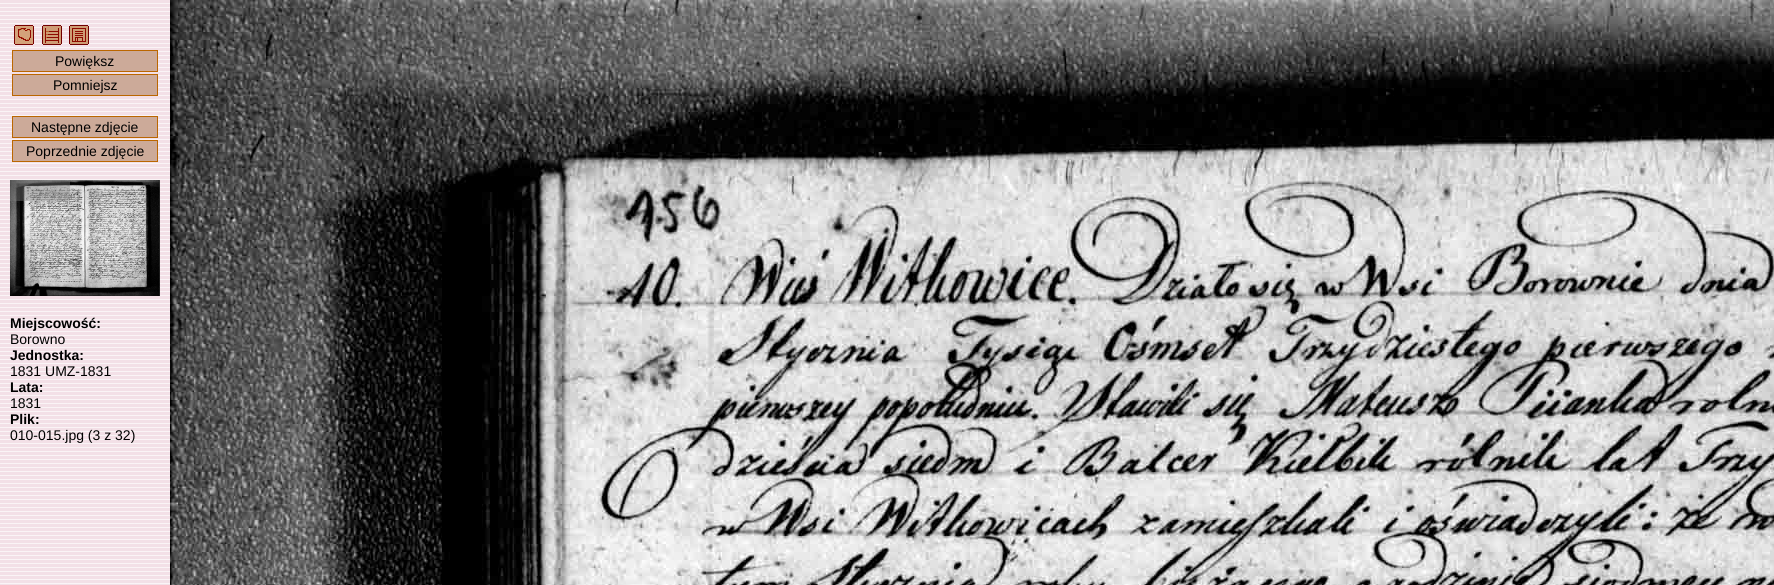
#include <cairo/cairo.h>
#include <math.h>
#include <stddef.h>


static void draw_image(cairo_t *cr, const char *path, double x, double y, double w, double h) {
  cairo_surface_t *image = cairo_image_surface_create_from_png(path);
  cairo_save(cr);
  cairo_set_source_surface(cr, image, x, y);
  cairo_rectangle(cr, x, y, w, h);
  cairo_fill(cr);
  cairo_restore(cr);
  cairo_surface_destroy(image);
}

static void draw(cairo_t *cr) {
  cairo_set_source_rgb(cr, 1, 1, 1);
  cairo_paint(cr);
  draw_image(cr, "images/1.png", 0, 0, 170, 585);
  draw_image(cr, "images/2.png", 14, 25, 20, 20);
  draw_image(cr, "images/3.png", 42, 25, 20, 20);
  draw_image(cr, "images/4.png", 69, 25, 20, 20);
  cairo_set_source_rgb(cr, 204 / 255.0, 170 / 255.0, 153 / 255.0);
  cairo_rectangle(cr, 12.5, 50.5, 145, 21);
  cairo_fill_preserve(cr);
  cairo_set_source_rgb(cr, 187 / 255.0, 102 / 255.0, 0);
  cairo_set_line_width(cr, 1);
  cairo_stroke(cr);
  cairo_set_source_rgb(cr, 204 / 255.0, 170 / 255.0, 153 / 255.0);
  cairo_rectangle(cr, 12.5, 74.5, 145, 21);
  cairo_fill_preserve(cr);
  cairo_set_source_rgb(cr, 187 / 255.0, 102 / 255.0, 0);
  cairo_stroke(cr);
  cairo_set_source_rgb(cr, 204 / 255.0, 170 / 255.0, 153 / 255.0);
  cairo_rectangle(cr, 12.5, 116.5, 145, 21);
  cairo_fill_preserve(cr);
  cairo_set_source_rgb(cr, 187 / 255.0, 102 / 255.0, 0);
  cairo_stroke(cr);
  cairo_set_source_rgb(cr, 204 / 255.0, 170 / 255.0, 153 / 255.0);
  cairo_rectangle(cr, 12.5, 140.5, 145, 21);
  cairo_fill_preserve(cr);
  cairo_set_source_rgb(cr, 187 / 255.0, 102 / 255.0, 0);
  cairo_stroke(cr);
  draw_image(cr, "images/5.png", 10, 180, 150, 116);
  draw_image(cr, "images/6.png", 170, 0, 1604, 585);
  cairo_select_font_face(cr, "Liberation Sans", CAIRO_FONT_SLANT_NORMAL, CAIRO_FONT_WEIGHT_NORMAL);
  cairo_set_font_size(cr, 14);
  cairo_set_source_rgb(cr, 0, 0, 0);
  cairo_move_to(cr, 55, 66);
  cairo_show_text(cr, "Powiększ");
  cairo_move_to(cr, 53, 90);
  cairo_show_text(cr, "Pomniejsz");
  cairo_move_to(cr, 31, 132);
  cairo_show_text(cr, "Następne zdjęcie");
  cairo_move_to(cr, 26, 156);
  cairo_show_text(cr, "Poprzednie zdjęcie");
  cairo_select_font_face(cr, "Liberation Sans", CAIRO_FONT_SLANT_NORMAL, CAIRO_FONT_WEIGHT_BOLD);
  cairo_move_to(cr, 10, 328);
  cairo_show_text(cr, "Miejscowość:");
  cairo_select_font_face(cr, "Liberation Sans", CAIRO_FONT_SLANT_NORMAL, CAIRO_FONT_WEIGHT_NORMAL);
  cairo_move_to(cr, 10, 344);
  cairo_show_text(cr, "Borowno");
  cairo_select_font_face(cr, "Liberation Sans", CAIRO_FONT_SLANT_NORMAL, CAIRO_FONT_WEIGHT_BOLD);
  cairo_move_to(cr, 10, 360);
  cairo_show_text(cr, "Jednostka:");
  cairo_select_font_face(cr, "Liberation Sans", CAIRO_FONT_SLANT_NORMAL, CAIRO_FONT_WEIGHT_NORMAL);
  cairo_move_to(cr, 10, 376);
  cairo_show_text(cr, "1831 UMZ-1831");
  cairo_select_font_face(cr, "Liberation Sans", CAIRO_FONT_SLANT_NORMAL, CAIRO_FONT_WEIGHT_BOLD);
  cairo_move_to(cr, 10, 392);
  cairo_show_text(cr, "Lata:");
  cairo_select_font_face(cr, "Liberation Sans", CAIRO_FONT_SLANT_NORMAL, CAIRO_FONT_WEIGHT_NORMAL);
  cairo_move_to(cr, 10, 408);
  cairo_show_text(cr, "1831");
  cairo_select_font_face(cr, "Liberation Sans", CAIRO_FONT_SLANT_NORMAL, CAIRO_FONT_WEIGHT_BOLD);
  cairo_move_to(cr, 10, 424);
  cairo_show_text(cr, "Plik:");
  cairo_select_font_face(cr, "Liberation Sans", CAIRO_FONT_SLANT_NORMAL, CAIRO_FONT_WEIGHT_NORMAL);
  cairo_move_to(cr, 10, 440);
  cairo_show_text(cr, "010-015.jpg (3 z 32)");
}

int main(void) {
  cairo_surface_t *surface = cairo_image_surface_create(CAIRO_FORMAT_RGB24, 1774, 585);
  cairo_t *cr = cairo_create(surface);
  cairo_font_options_t *options = cairo_font_options_create();
  cairo_font_options_set_hint_metrics(options, CAIRO_HINT_METRICS_OFF);
  cairo_font_options_set_hint_style(options, CAIRO_HINT_STYLE_NONE);
  cairo_set_font_options(cr, options);
  cairo_set_miter_limit(cr, 4);
  draw(cr);
  cairo_surface_write_to_png(surface, "out.png");
  cairo_font_options_destroy(options);
  cairo_destroy(cr);
  cairo_surface_destroy(surface);
  return 0;
}
